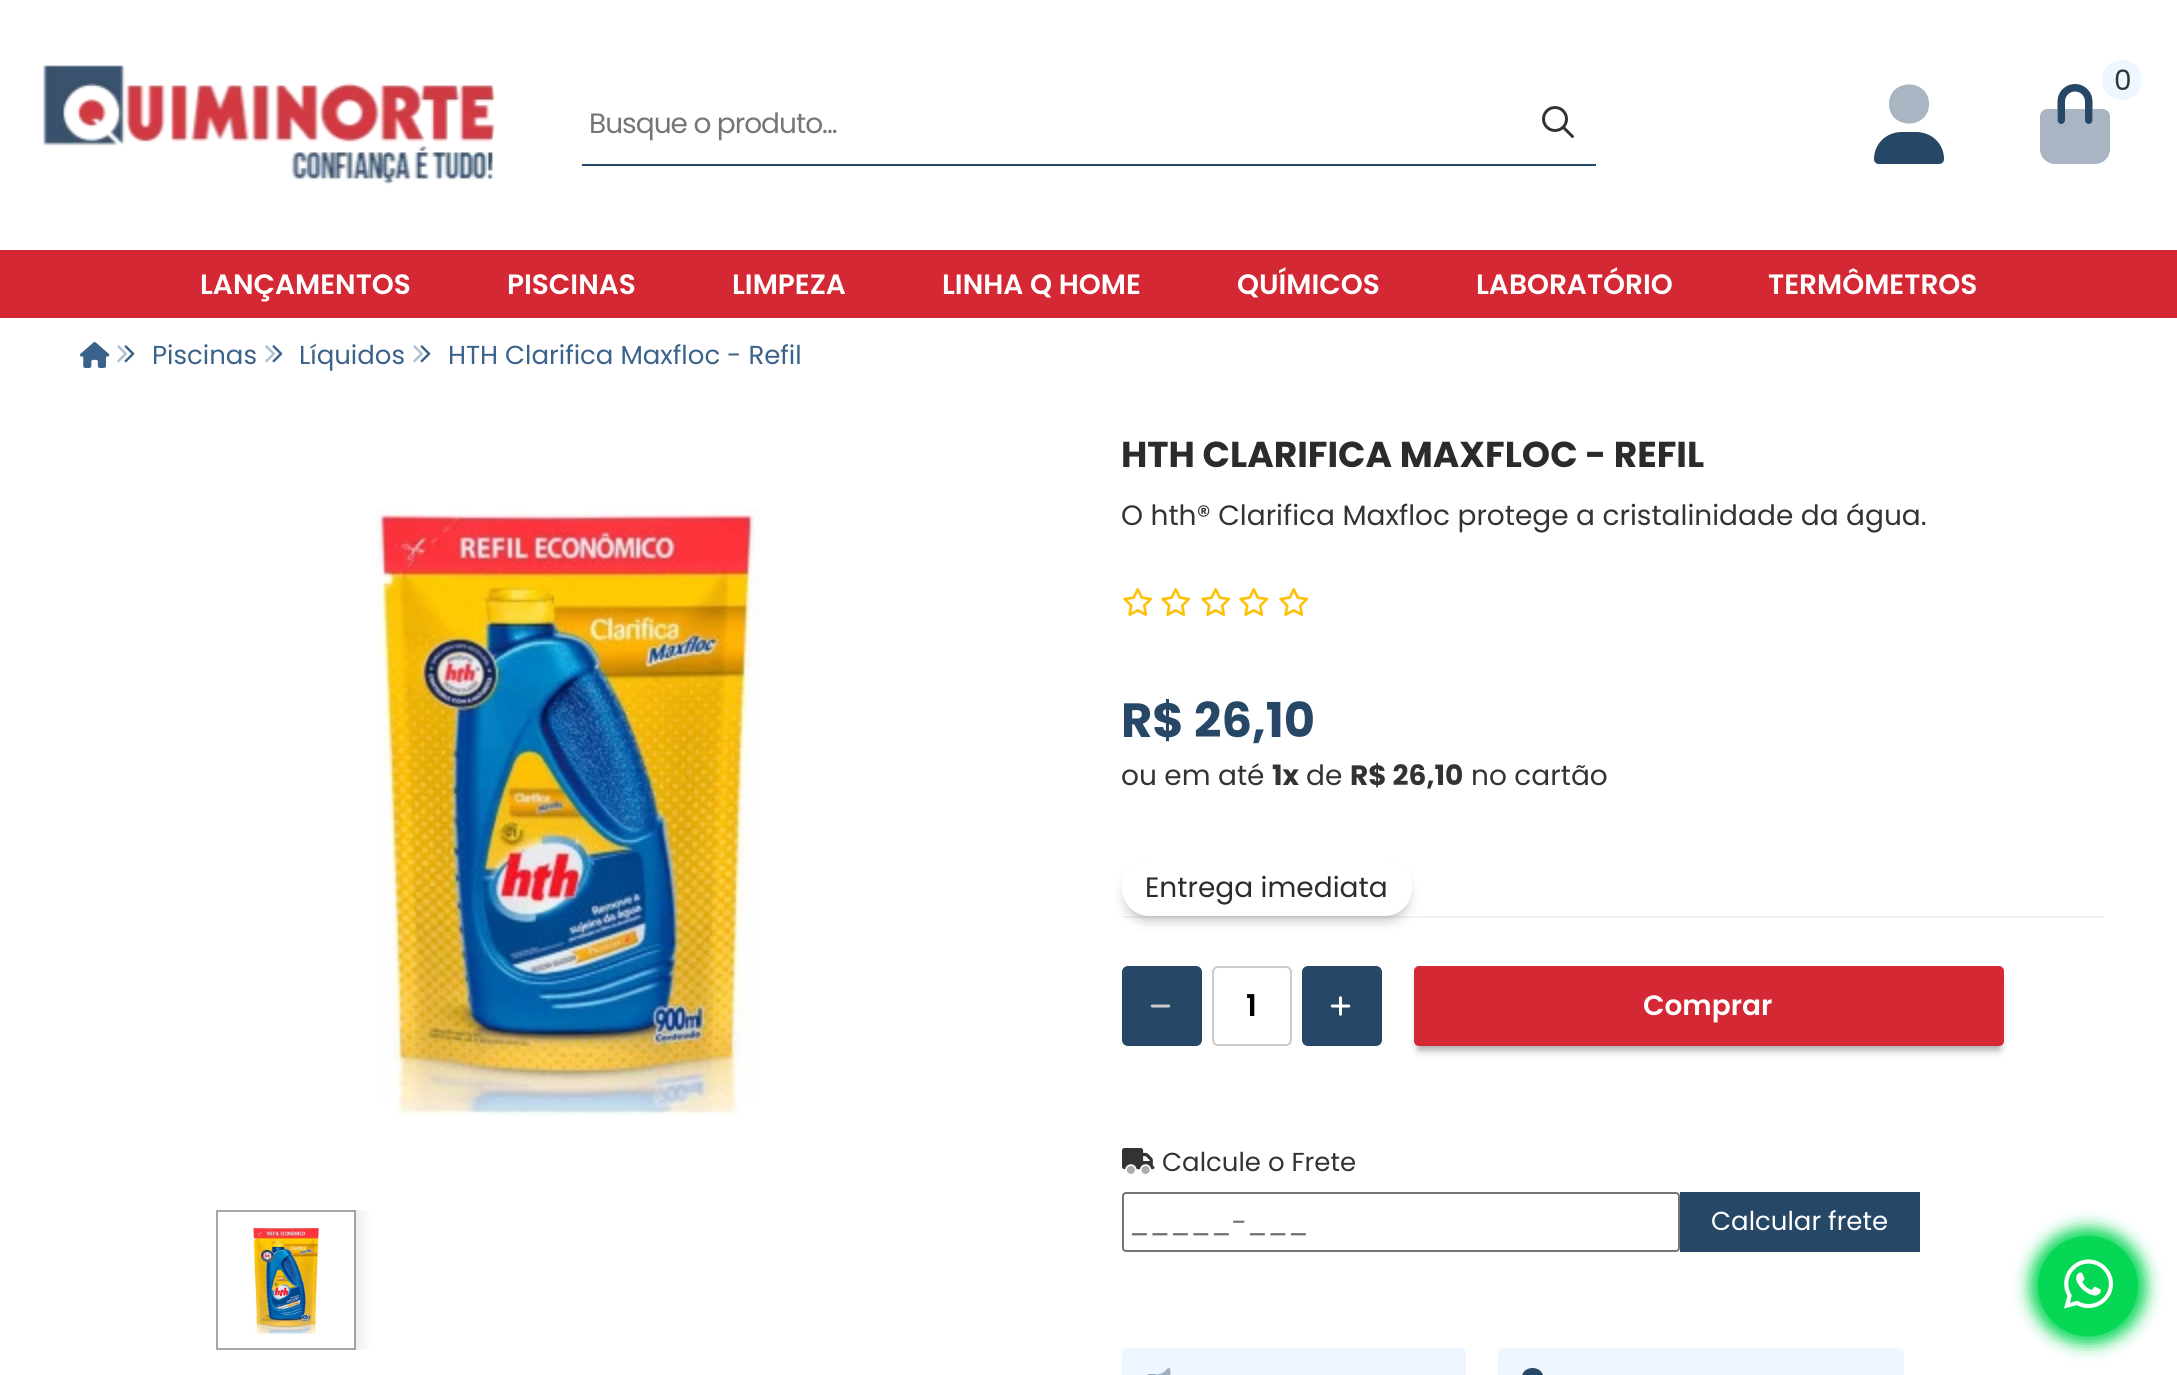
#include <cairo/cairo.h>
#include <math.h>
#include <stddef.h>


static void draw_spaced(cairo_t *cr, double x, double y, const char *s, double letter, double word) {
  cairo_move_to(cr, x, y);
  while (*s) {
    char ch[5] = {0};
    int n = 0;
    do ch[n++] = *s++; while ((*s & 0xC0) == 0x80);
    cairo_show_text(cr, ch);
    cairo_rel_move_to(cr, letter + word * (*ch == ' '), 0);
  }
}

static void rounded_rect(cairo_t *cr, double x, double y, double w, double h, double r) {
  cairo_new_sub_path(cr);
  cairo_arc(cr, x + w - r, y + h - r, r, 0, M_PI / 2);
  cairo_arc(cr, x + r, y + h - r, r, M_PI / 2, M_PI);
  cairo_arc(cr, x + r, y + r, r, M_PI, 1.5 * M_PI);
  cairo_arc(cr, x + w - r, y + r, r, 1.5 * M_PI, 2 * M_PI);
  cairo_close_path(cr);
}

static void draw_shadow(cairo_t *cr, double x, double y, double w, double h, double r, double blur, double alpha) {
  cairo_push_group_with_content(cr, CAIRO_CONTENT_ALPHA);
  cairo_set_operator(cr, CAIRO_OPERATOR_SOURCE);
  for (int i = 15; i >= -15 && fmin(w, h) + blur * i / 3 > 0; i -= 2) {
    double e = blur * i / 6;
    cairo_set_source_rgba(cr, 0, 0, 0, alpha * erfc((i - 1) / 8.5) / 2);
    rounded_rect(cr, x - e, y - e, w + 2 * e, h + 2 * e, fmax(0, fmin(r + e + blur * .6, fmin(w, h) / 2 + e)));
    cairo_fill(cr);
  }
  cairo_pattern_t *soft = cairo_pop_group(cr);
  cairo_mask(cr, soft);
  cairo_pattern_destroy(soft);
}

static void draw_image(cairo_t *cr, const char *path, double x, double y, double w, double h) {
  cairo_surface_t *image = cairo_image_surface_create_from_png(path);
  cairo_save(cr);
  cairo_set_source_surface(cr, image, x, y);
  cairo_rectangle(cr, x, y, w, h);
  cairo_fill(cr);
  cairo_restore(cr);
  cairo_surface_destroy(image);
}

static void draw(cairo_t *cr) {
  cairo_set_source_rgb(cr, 1, 1, 1);
  cairo_paint(cr);
  draw_image(cr, "images/1.png", 43, 65, 451, 120);
  draw_image(cr, "images/2.png", 2040, 84, 70, 80);
  cairo_set_source_rgb(cr, 238 / 255.0, 247 / 255.0, 1);
  cairo_arc(cr, 2122, 80, 20, 0, 2 * M_PI);
  cairo_fill(cr);
  cairo_set_source_rgb(cr, 169 / 255.0, 181 / 255.0, 194 / 255.0);
  cairo_new_path(cr);
  cairo_move_to(cr, 1889, 104);
  cairo_curve_to(cr, 1889, 130, 1929, 130, 1929, 104);
  cairo_curve_to(cr, 1929, 78, 1889, 78, 1889, 104);
  cairo_close_path(cr);
  cairo_fill(cr);
  cairo_set_source_rgb(cr, 39 / 255.0, 71 / 255.0, 103 / 255.0);
  cairo_new_path(cr);
  cairo_move_to(cr, 1874, 159);
  cairo_curve_to(cr, 1874, 144, 1886, 132, 1902, 132);
  cairo_line_to(cr, 1916, 132);
  cairo_curve_to(cr, 1932, 132, 1944, 144, 1944, 159);
  cairo_curve_to(cr, 1944, 162, 1942, 164, 1939, 164);
  cairo_line_to(cr, 1879, 164);
  cairo_curve_to(cr, 1876, 164, 1874, 162, 1874, 159);
  cairo_close_path(cr);
  cairo_fill(cr);
  cairo_rectangle(cr, 582, 164, 1014, 2);
  cairo_fill(cr);
  draw_image(cr, "images/3.png", 1542, 106, 32, 32);
  cairo_set_source_rgb(cr, 212 / 255.0, 41 / 255.0, 52 / 255.0);
  cairo_rectangle(cr, 0, 250, 2177, 68);
  cairo_fill(cr);
  draw_image(cr, "images/4.png", 80, 342, 30, 26);
  draw_image(cr, "images/5.png", 117, 345, 18, 18);
  draw_image(cr, "images/5.png", 265, 345, 18, 18);
  draw_image(cr, "images/5.png", 413, 345, 18, 18);
  draw_image(cr, "images/6.png", 376, 509, 384, 608);
  cairo_save(cr);
  cairo_rectangle(cr, 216, 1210, 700, 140);
  cairo_clip(cr);
  cairo_rectangle(cr, 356, 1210, 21, 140);
  cairo_clip(cr);
  cairo_set_source_rgb(cr, 221 / 255.0, 221 / 255.0, 221 / 255.0);
  draw_shadow(cr, 216, 1210, 140, 140, 0, 10, 1);
  cairo_restore(cr);
  cairo_rectangle(cr, 217, 1211, 138, 138);
  cairo_set_source_rgb(cr, 166 / 255.0, 166 / 255.0, 166 / 255.0);
  cairo_stroke(cr);
  draw_image(cr, "images/7.png", 252, 1227, 68, 107);
  draw_image(cr, "images/8.png", 1123, 588, 30, 28);
  draw_image(cr, "images/8.png", 1161, 588, 30, 28);
  draw_image(cr, "images/8.png", 1201, 588, 30, 28);
  draw_image(cr, "images/8.png", 1239, 588, 30, 28);
  draw_image(cr, "images/8.png", 1279, 588, 30, 28);
  cairo_set_source_rgb(cr, 242 / 255.0, 242 / 255.0, 242 / 255.0);
  cairo_rectangle(cr, 1122, 916, 982, 2);
  cairo_fill(cr);
  cairo_save(cr);
  cairo_set_fill_rule(cr, CAIRO_FILL_RULE_EVEN_ODD);
  cairo_new_path(cr);
  cairo_move_to(cr, 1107, 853);
  cairo_line_to(cr, 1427, 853);
  cairo_line_to(cr, 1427, 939);
  cairo_line_to(cr, 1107, 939);
  cairo_close_path(cr);
  cairo_move_to(cr, 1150, 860);
  cairo_line_to(cr, 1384, 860);
  cairo_curve_to(cr, 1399.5, 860, 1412, 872.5, 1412, 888);
  cairo_curve_to(cr, 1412, 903.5, 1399.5, 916, 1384, 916);
  cairo_line_to(cr, 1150, 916);
  cairo_curve_to(cr, 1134.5, 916, 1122, 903.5, 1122, 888);
  cairo_curve_to(cr, 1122, 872.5, 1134.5, 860, 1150, 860);
  cairo_close_path(cr);
  cairo_clip(cr);
  cairo_set_source_rgb(cr, 0, 0, 0);
  draw_shadow(cr, 1126, 872, 282, 48, 24, 6, 0.25);
  cairo_restore(cr);
  cairo_set_source_rgb(cr, 39 / 255.0, 71 / 255.0, 103 / 255.0);
  rounded_rect(cr, 1122, 966, 80, 80, 6);
  cairo_fill(cr);
  draw_image(cr, "images/9.png", 1150, 1004, 21, 4);
  rounded_rect(cr, 1213, 967, 78, 78, 5);
  cairo_set_source_rgb(cr, 204 / 255.0, 204 / 255.0, 204 / 255.0);
  cairo_stroke(cr);
  cairo_set_source_rgb(cr, 39 / 255.0, 71 / 255.0, 103 / 255.0);
  rounded_rect(cr, 1302, 966, 80, 80, 6);
  cairo_fill(cr);
  draw_image(cr, "images/10.png", 1330, 996, 21, 20);
  cairo_set_source_rgb(cr, 0, 0, 0);
  draw_shadow(cr, 1418, 978, 582, 72, 1, 4, 0.35);
  cairo_set_source_rgb(cr, 212 / 255.0, 41 / 255.0, 52 / 255.0);
  rounded_rect(cr, 1414, 966, 590, 80, 5);
  cairo_fill(cr);
  draw_image(cr, "images/11.png", 1122, 1148, 33, 26);
  rounded_rect(cr, 1123, 1193, 556, 58, 3);
  cairo_set_source_rgb(cr, 118 / 255.0, 118 / 255.0, 118 / 255.0);
  cairo_stroke(cr);
  cairo_set_source_rgb(cr, 39 / 255.0, 71 / 255.0, 103 / 255.0);
  cairo_rectangle(cr, 1680, 1192, 240, 60);
  cairo_fill(cr);
  cairo_set_source_rgb(cr, 238 / 255.0, 247 / 255.0, 1);
  rounded_rect(cr, 1122, 1348, 344, 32, 5);
  cairo_fill(cr);
  draw_image(cr, "images/12.png", 1147, 1368, 24, 7);
  rounded_rect(cr, 1498, 1348, 406, 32, 5);
  cairo_fill(cr);
  draw_image(cr, "images/13.png", 1522, 1368, 21, 7);
  cairo_set_source_rgb(cr, 6 / 255.0, 215 / 255.0, 85 / 255.0);
  draw_shadow(cr, 2030, 1228, 116, 116, 58, 8, 1);
  cairo_set_source_rgb(cr, 6 / 255.0, 215 / 255.0, 85 / 255.0);
  cairo_arc(cr, 2088, 1286, 50, 0, 2 * M_PI);
  cairo_fill(cr);
  draw_image(cr, "images/14.png", 2064, 1259, 49, 50);
  cairo_select_font_face(cr, "Poppins", CAIRO_FONT_SLANT_NORMAL, CAIRO_FONT_WEIGHT_NORMAL);
  cairo_set_font_size(cr, 28);
  cairo_set_source_rgb(cr, 51 / 255.0, 51 / 255.0, 51 / 255.0);
  cairo_move_to(cr, 2114, 90);
  cairo_show_text(cr, "0");
  cairo_set_source_rgb(cr, 117 / 255.0, 117 / 255.0, 117 / 255.0);
  draw_spaced(cr, 589, 133, "Busque o produto...", -1, 0);
  cairo_select_font_face(cr, "Poppins SemiBold", CAIRO_FONT_SLANT_NORMAL, CAIRO_FONT_WEIGHT_NORMAL);
  cairo_set_source_rgb(cr, 1, 1, 1);
  cairo_move_to(cr, 200, 294);
  cairo_show_text(cr, "LANÇAMENTOS");
  cairo_move_to(cr, 507, 294);
  cairo_show_text(cr, "PISCINAS");
  cairo_move_to(cr, 732, 294);
  cairo_show_text(cr, "LIMPEZA");
  cairo_move_to(cr, 942, 294);
  cairo_show_text(cr, "LINHA Q HOME");
  cairo_move_to(cr, 1237, 294);
  cairo_show_text(cr, "QUÍMICOS");
  cairo_move_to(cr, 1476, 294);
  cairo_show_text(cr, "LABORATÓRIO");
  cairo_move_to(cr, 1768, 294);
  cairo_show_text(cr, "TERMÔMETROS");
  cairo_select_font_face(cr, "Poppins", CAIRO_FONT_SLANT_NORMAL, CAIRO_FONT_WEIGHT_NORMAL);
  cairo_set_font_size(cr, 26);
  cairo_set_source_rgb(cr, 58 / 255.0, 98 / 255.0, 138 / 255.0);
  cairo_move_to(cr, 152, 364);
  cairo_show_text(cr, "Piscinas");
  cairo_move_to(cr, 299, 364);
  cairo_show_text(cr, "Líquidos");
  cairo_move_to(cr, 448, 364);
  cairo_show_text(cr, "HTH Clarifica Maxfloc - Refil");
  cairo_select_font_face(cr, "Poppins", CAIRO_FONT_SLANT_NORMAL, CAIRO_FONT_WEIGHT_BOLD);
  cairo_set_font_size(cr, 36);
  cairo_set_source_rgb(cr, 43 / 255.0, 43 / 255.0, 43 / 255.0);
  cairo_move_to(cr, 1121, 467);
  cairo_show_text(cr, "HTH CLARIFICA MAXFLOC - REFIL");
  cairo_select_font_face(cr, "Poppins", CAIRO_FONT_SLANT_NORMAL, CAIRO_FONT_WEIGHT_NORMAL);
  cairo_set_font_size(cr, 28);
  cairo_set_source_rgb(cr, 51 / 255.0, 51 / 255.0, 51 / 255.0);
  cairo_move_to(cr, 1121, 525);
  cairo_show_text(cr, "O hth® Clarifica Maxfloc protege a cristalinidade da água.");
  cairo_select_font_face(cr, "Poppins", CAIRO_FONT_SLANT_NORMAL, CAIRO_FONT_WEIGHT_BOLD);
  cairo_set_font_size(cr, 48);
  cairo_set_source_rgb(cr, 39 / 255.0, 71 / 255.0, 103 / 255.0);
  cairo_move_to(cr, 1121, 737);
  cairo_show_text(cr, "R$ 26,10");
  cairo_select_font_face(cr, "Poppins", CAIRO_FONT_SLANT_NORMAL, CAIRO_FONT_WEIGHT_NORMAL);
  cairo_set_font_size(cr, 28);
  cairo_set_source_rgb(cr, 51 / 255.0, 51 / 255.0, 51 / 255.0);
  cairo_move_to(cr, 1121, 785);
  cairo_show_text(cr, "ou em até");
  cairo_select_font_face(cr, "Poppins", CAIRO_FONT_SLANT_NORMAL, CAIRO_FONT_WEIGHT_BOLD);
  cairo_move_to(cr, 1272, 785);
  cairo_show_text(cr, "1x");
  cairo_select_font_face(cr, "Poppins", CAIRO_FONT_SLANT_NORMAL, CAIRO_FONT_WEIGHT_NORMAL);
  cairo_move_to(cr, 1306, 785);
  cairo_show_text(cr, "de");
  cairo_select_font_face(cr, "Poppins", CAIRO_FONT_SLANT_NORMAL, CAIRO_FONT_WEIGHT_BOLD);
  cairo_move_to(cr, 1350, 785);
  cairo_show_text(cr, "R$ 26,10");
  cairo_select_font_face(cr, "Poppins", CAIRO_FONT_SLANT_NORMAL, CAIRO_FONT_WEIGHT_NORMAL);
  cairo_move_to(cr, 1471, 785);
  cairo_show_text(cr, "no cartão");
  cairo_set_source_rgb(cr, 43 / 255.0, 43 / 255.0, 43 / 255.0);
  cairo_move_to(cr, 1145, 897);
  cairo_show_text(cr, "Entrega imediata");
  cairo_select_font_face(cr, "Poppins SemiBold", CAIRO_FONT_SLANT_NORMAL, CAIRO_FONT_WEIGHT_NORMAL);
  cairo_set_font_size(cr, 30);
  cairo_set_source_rgb(cr, 0, 0, 0);
  cairo_move_to(cr, 1246, 1016);
  cairo_show_text(cr, "1");
  cairo_set_font_size(cr, 28);
  cairo_set_source_rgb(cr, 1, 1, 1);
  cairo_move_to(cr, 1643, 1015);
  cairo_show_text(cr, "Comprar");
  cairo_select_font_face(cr, "Poppins", CAIRO_FONT_SLANT_NORMAL, CAIRO_FONT_WEIGHT_NORMAL);
  cairo_set_font_size(cr, 26);
  cairo_set_source_rgb(cr, 51 / 255.0, 51 / 255.0, 51 / 255.0);
  cairo_move_to(cr, 1162, 1171);
  cairo_show_text(cr, "Calcule o Frete");
  cairo_set_font_size(cr, 28);
  cairo_set_source_rgb(cr, 117 / 255.0, 117 / 255.0, 117 / 255.0);
  cairo_move_to(cr, 1129, 1232);
  cairo_show_text(cr, "_____-___");
  cairo_set_font_size(cr, 26);
  cairo_set_source_rgb(cr, 1, 1, 1);
  cairo_move_to(cr, 1711, 1230);
  cairo_show_text(cr, "Calcular frete");
}

int main(void) {
  cairo_surface_t *surface = cairo_image_surface_create(CAIRO_FORMAT_RGB24, 2177, 1375);
  cairo_t *cr = cairo_create(surface);
  cairo_font_options_t *options = cairo_font_options_create();
  cairo_font_options_set_hint_metrics(options, CAIRO_HINT_METRICS_OFF);
  cairo_font_options_set_hint_style(options, CAIRO_HINT_STYLE_NONE);
  cairo_set_font_options(cr, options);
  cairo_set_miter_limit(cr, 4);
  draw(cr);
  cairo_surface_write_to_png(surface, "out.png");
  cairo_font_options_destroy(options);
  cairo_destroy(cr);
  cairo_surface_destroy(surface);
  return 0;
}
